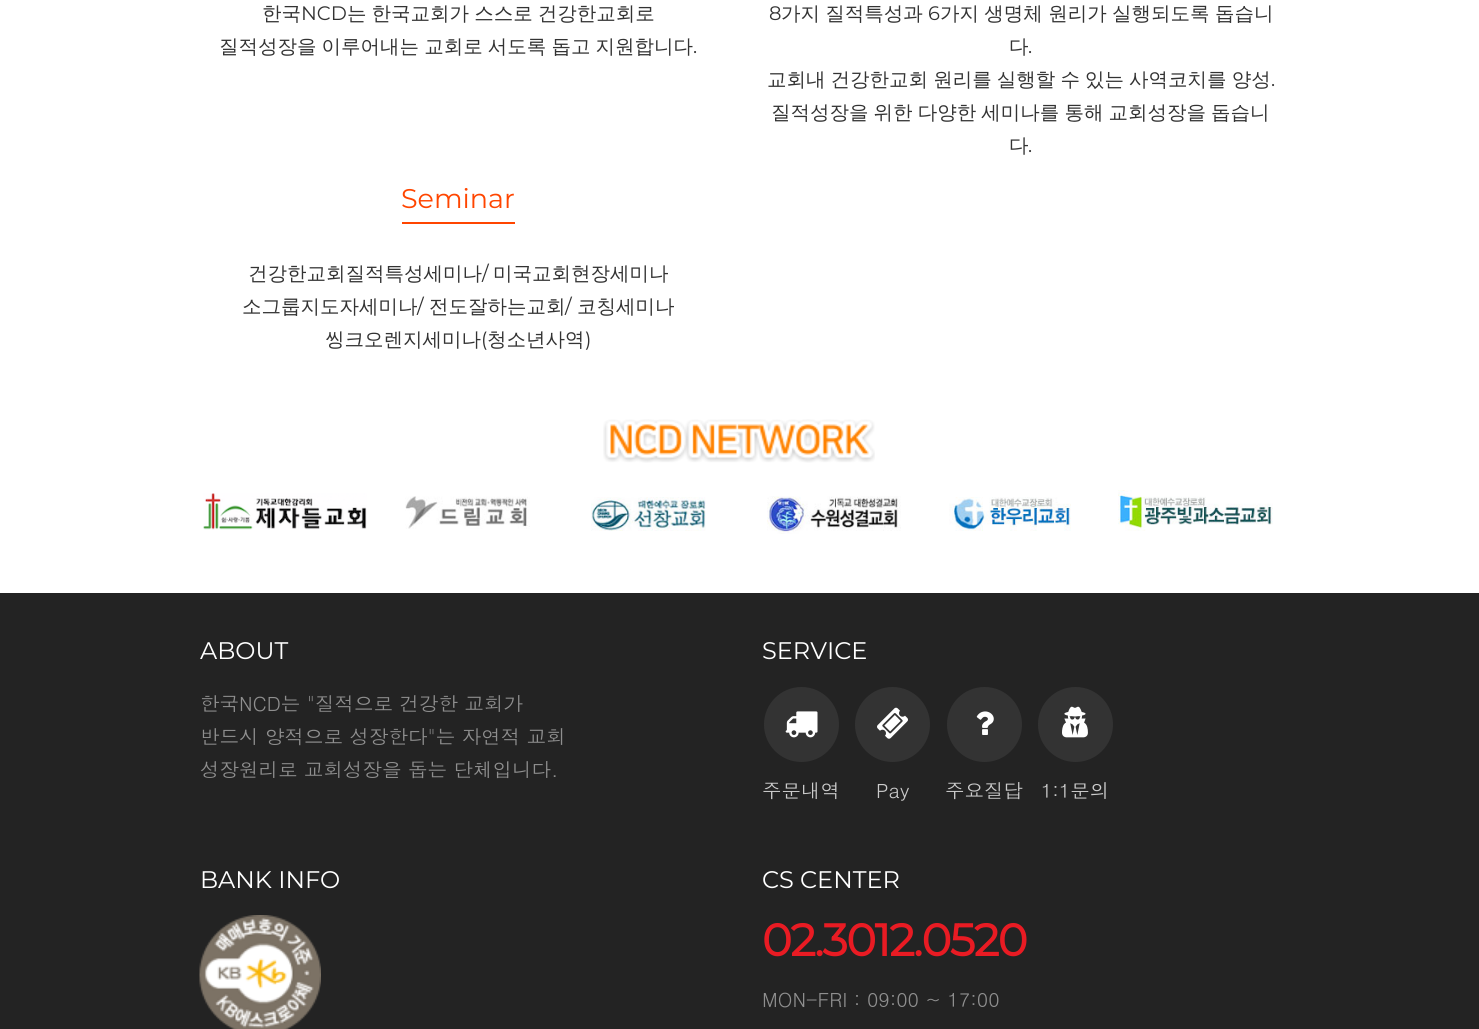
#include <cairo/cairo.h>
#include <math.h>
#include <stddef.h>


static void draw_spaced(cairo_t *cr, double x, double y, const char *s, double letter, double word) {
  cairo_move_to(cr, x, y);
  while (*s) {
    char ch[5] = {0};
    int n = 0;
    do ch[n++] = *s++; while ((*s & 0xC0) == 0x80);
    cairo_show_text(cr, ch);
    cairo_rel_move_to(cr, letter + word * (*ch == ' '), 0);
  }
}

static void draw_image(cairo_t *cr, const char *path, double x, double y, double w, double h) {
  cairo_surface_t *image = cairo_image_surface_create_from_png(path);
  cairo_save(cr);
  cairo_set_source_surface(cr, image, x, y);
  cairo_rectangle(cr, x, y, w, h);
  cairo_fill(cr);
  cairo_restore(cr);
  cairo_surface_destroy(image);
}

static void draw(cairo_t *cr) {
  cairo_set_source_rgb(cr, 1, 1, 1);
  cairo_paint(cr);
  cairo_set_source_rgb(cr, 1, 69 / 255.0, 0);
  cairo_rectangle(cr, 402, 222, 113, 2);
  cairo_fill(cr);
  draw_image(cr, "images/1.png", 603, 419, 272, 44);
  draw_image(cr, "images/2.png", 203, 493, 164, 37);
  draw_image(cr, "images/3.png", 405, 496, 125, 33);
  draw_image(cr, "images/4.png", 591, 497, 115, 34);
  draw_image(cr, "images/5.png", 767, 496, 134, 38);
  draw_image(cr, "images/6.png", 949, 497, 122, 34);
  draw_image(cr, "images/7.png", 1118, 490, 155, 41);
  cairo_set_source_rgb(cr, 35 / 255.0, 35 / 255.0, 35 / 255.0);
  cairo_rectangle(cr, 0, 593, 1479, 436);
  cairo_fill(cr);
  cairo_set_source_rgb(cr, 51 / 255.0, 51 / 255.0, 51 / 255.0);
  cairo_arc(cr, 801.5, 724.5, 37.5, 0, 2 * M_PI);
  cairo_fill(cr);
  draw_image(cr, "images/8.png", 785, 711, 33, 27);
  cairo_arc(cr, 892.5, 724.5, 37.5, 0, 2 * M_PI);
  cairo_fill(cr);
  draw_image(cr, "images/9.png", 877, 707, 31, 32);
  cairo_arc(cr, 984.5, 724.5, 37.5, 0, 2 * M_PI);
  cairo_fill(cr);
  draw_image(cr, "images/10.png", 976, 711, 18, 24);
  cairo_arc(cr, 1075.5, 724.5, 37.5, 0, 2 * M_PI);
  cairo_fill(cr);
  draw_image(cr, "images/11.png", 1062, 706, 26, 32);
  draw_image(cr, "images/12.png", 199, 915, 122, 114);
  cairo_select_font_face(cr, "WenQuanYi Zen Hei Medium", CAIRO_FONT_SLANT_NORMAL, CAIRO_FONT_WEIGHT_NORMAL);
  cairo_set_font_size(cr, 19.5);
  cairo_move_to(cr, 262, 20);
  cairo_show_text(cr, "한국");
  cairo_select_font_face(cr, "Montserrat Thin", CAIRO_FONT_SLANT_NORMAL, CAIRO_FONT_WEIGHT_NORMAL);
  cairo_move_to(cr, 301, 20);
  cairo_show_text(cr, "NCD");
  cairo_select_font_face(cr, "WenQuanYi Zen Hei Medium", CAIRO_FONT_SLANT_NORMAL, CAIRO_FONT_WEIGHT_NORMAL);
  draw_spaced(cr, 347, 20, "는 한국교회가 스스로 건강한교회로", 0, -0.75);
  draw_spaced(cr, 219, 53, "질적성장을 이루어내는 교회로 서도록 돕고 지원합니다", 0, -0.75);
  cairo_select_font_face(cr, "Montserrat Thin", CAIRO_FONT_SLANT_NORMAL, CAIRO_FONT_WEIGHT_NORMAL);
  cairo_move_to(cr, 693, 53);
  cairo_show_text(cr, ".");
  cairo_move_to(cr, 769, 20);
  cairo_show_text(cr, "8");
  cairo_select_font_face(cr, "WenQuanYi Zen Hei Medium", CAIRO_FONT_SLANT_NORMAL, CAIRO_FONT_WEIGHT_NORMAL);
  draw_spaced(cr, 781, 20, "가지 질적특성과", 0, -0.5);
  cairo_select_font_face(cr, "Montserrat Thin", CAIRO_FONT_SLANT_NORMAL, CAIRO_FONT_WEIGHT_NORMAL);
  cairo_move_to(cr, 928, 20);
  cairo_show_text(cr, "6");
  cairo_select_font_face(cr, "WenQuanYi Zen Hei Medium", CAIRO_FONT_SLANT_NORMAL, CAIRO_FONT_WEIGHT_NORMAL);
  draw_spaced(cr, 940, 20, "가지 생명체 원리가 실행되도록 돕습니", 0, -0.5);
  cairo_move_to(cr, 1009, 53);
  cairo_show_text(cr, "다");
  cairo_select_font_face(cr, "Montserrat Thin", CAIRO_FONT_SLANT_NORMAL, CAIRO_FONT_WEIGHT_NORMAL);
  cairo_move_to(cr, 1028, 53);
  cairo_show_text(cr, ".");
  cairo_select_font_face(cr, "WenQuanYi Zen Hei Medium", CAIRO_FONT_SLANT_NORMAL, CAIRO_FONT_WEIGHT_NORMAL);
  draw_spaced(cr, 767, 86, "교회내 건강한교회 원리를 실행할 수 있는 사역코치를 양성", 0, -0.75);
  cairo_select_font_face(cr, "Montserrat Thin", CAIRO_FONT_SLANT_NORMAL, CAIRO_FONT_WEIGHT_NORMAL);
  cairo_move_to(cr, 1271, 86);
  cairo_show_text(cr, ".");
  cairo_select_font_face(cr, "WenQuanYi Zen Hei Medium", CAIRO_FONT_SLANT_NORMAL, CAIRO_FONT_WEIGHT_NORMAL);
  draw_spaced(cr, 771, 119, "질적성장을 위한 다양한 세미나를 통해 교회성장을 돕습니", 0, -0.75);
  cairo_move_to(cr, 1009, 152);
  cairo_show_text(cr, "다");
  cairo_select_font_face(cr, "Montserrat Thin", CAIRO_FONT_SLANT_NORMAL, CAIRO_FONT_WEIGHT_NORMAL);
  cairo_move_to(cr, 1028, 152);
  cairo_show_text(cr, ".");
  cairo_set_font_size(cr, 27);
  cairo_set_source_rgb(cr, 1, 69 / 255.0, 0);
  cairo_move_to(cr, 401, 208);
  cairo_show_text(cr, "Seminar");
  cairo_select_font_face(cr, "WenQuanYi Zen Hei Medium", CAIRO_FONT_SLANT_NORMAL, CAIRO_FONT_WEIGHT_NORMAL);
  cairo_set_font_size(cr, 19.5);
  cairo_set_source_rgb(cr, 51 / 255.0, 51 / 255.0, 51 / 255.0);
  cairo_move_to(cr, 248, 280);
  cairo_show_text(cr, "건강한교회질적특성세미나");
  cairo_select_font_face(cr, "Montserrat Thin", CAIRO_FONT_SLANT_NORMAL, CAIRO_FONT_WEIGHT_NORMAL);
  cairo_move_to(cr, 482, 280);
  cairo_show_text(cr, "/");
  cairo_select_font_face(cr, "WenQuanYi Zen Hei Medium", CAIRO_FONT_SLANT_NORMAL, CAIRO_FONT_WEIGHT_NORMAL);
  cairo_move_to(cr, 493, 280);
  cairo_show_text(cr, "미국교회현장세미나");
  cairo_move_to(cr, 242, 313);
  cairo_show_text(cr, "소그룹지도자세미나");
  cairo_select_font_face(cr, "Montserrat Thin", CAIRO_FONT_SLANT_NORMAL, CAIRO_FONT_WEIGHT_NORMAL);
  cairo_move_to(cr, 417, 313);
  cairo_show_text(cr, "/");
  cairo_select_font_face(cr, "WenQuanYi Zen Hei Medium", CAIRO_FONT_SLANT_NORMAL, CAIRO_FONT_WEIGHT_NORMAL);
  cairo_move_to(cr, 429, 313);
  cairo_show_text(cr, "전도잘하는교회");
  cairo_select_font_face(cr, "Montserrat Thin", CAIRO_FONT_SLANT_NORMAL, CAIRO_FONT_WEIGHT_NORMAL);
  cairo_move_to(cr, 565, 313);
  cairo_show_text(cr, "/");
  cairo_select_font_face(cr, "WenQuanYi Zen Hei Medium", CAIRO_FONT_SLANT_NORMAL, CAIRO_FONT_WEIGHT_NORMAL);
  cairo_move_to(cr, 577, 313);
  cairo_show_text(cr, "코칭세미나");
  cairo_move_to(cr, 325, 346);
  cairo_show_text(cr, "씽크오렌지세미나");
  cairo_select_font_face(cr, "Montserrat Thin", CAIRO_FONT_SLANT_NORMAL, CAIRO_FONT_WEIGHT_NORMAL);
  cairo_move_to(cr, 481, 346);
  cairo_show_text(cr, "(");
  cairo_select_font_face(cr, "WenQuanYi Zen Hei Medium", CAIRO_FONT_SLANT_NORMAL, CAIRO_FONT_WEIGHT_NORMAL);
  cairo_move_to(cr, 487, 346);
  cairo_show_text(cr, "청소년사역");
  cairo_select_font_face(cr, "Montserrat Thin", CAIRO_FONT_SLANT_NORMAL, CAIRO_FONT_WEIGHT_NORMAL);
  cairo_move_to(cr, 585, 346);
  cairo_show_text(cr, ")");
  cairo_set_font_size(cr, 24);
  cairo_set_source_rgb(cr, 1, 1, 1);
  cairo_move_to(cr, 200, 659);
  cairo_show_text(cr, "ABOUT");
  cairo_select_font_face(cr, "Dotum", CAIRO_FONT_SLANT_NORMAL, CAIRO_FONT_WEIGHT_NORMAL);
  cairo_set_font_size(cr, 19.5);
  cairo_set_source_rgb(cr, 143 / 255.0, 143 / 255.0, 143 / 255.0);
  cairo_move_to(cr, 200, 711);
  cairo_show_text(cr, "한국NCD는 \"질적으로 건강한 교회가");
  cairo_move_to(cr, 200, 744);
  cairo_show_text(cr, "반드시 양적으로 성장한다\"는 자연적 교회");
  cairo_move_to(cr, 200, 777);
  cairo_show_text(cr, "성장원리로 교회성장을 돕는 단체입니다.");
  cairo_select_font_face(cr, "Montserrat Thin", CAIRO_FONT_SLANT_NORMAL, CAIRO_FONT_WEIGHT_NORMAL);
  cairo_set_font_size(cr, 24);
  cairo_set_source_rgb(cr, 1, 1, 1);
  cairo_move_to(cr, 762, 659);
  cairo_show_text(cr, "SERVICE");
  cairo_select_font_face(cr, "Dotum", CAIRO_FONT_SLANT_NORMAL, CAIRO_FONT_WEIGHT_NORMAL);
  cairo_set_font_size(cr, 19.5);
  cairo_set_source_rgb(cr, 204 / 255.0, 204 / 255.0, 204 / 255.0);
  cairo_move_to(cr, 762, 798);
  cairo_show_text(cr, "주문내역");
  cairo_move_to(cr, 876, 798);
  cairo_show_text(cr, "Pay");
  cairo_move_to(cr, 945, 798);
  cairo_show_text(cr, "주요질답");
  cairo_move_to(cr, 1041, 798);
  cairo_show_text(cr, "1:1문의");
  cairo_select_font_face(cr, "Montserrat Thin", CAIRO_FONT_SLANT_NORMAL, CAIRO_FONT_WEIGHT_NORMAL);
  cairo_set_font_size(cr, 24);
  cairo_set_source_rgb(cr, 1, 1, 1);
  cairo_move_to(cr, 200, 888);
  cairo_show_text(cr, "BANK INFO");
  cairo_move_to(cr, 762, 888);
  cairo_show_text(cr, "CS CENTER");
  cairo_select_font_face(cr, "Montserrat", CAIRO_FONT_SLANT_NORMAL, CAIRO_FONT_WEIGHT_BOLD);
  cairo_set_font_size(cr, 45);
  cairo_set_source_rgb(cr, 233 / 255.0, 27 / 255.0, 35 / 255.0);
  draw_spaced(cr, 762, 956, "02.3012.0520", -1.5, 0);
  cairo_select_font_face(cr, "Dotum", CAIRO_FONT_SLANT_NORMAL, CAIRO_FONT_WEIGHT_NORMAL);
  cairo_set_font_size(cr, 19.5);
  cairo_set_source_rgb(cr, 143 / 255.0, 143 / 255.0, 143 / 255.0);
  cairo_move_to(cr, 762, 1007);
  cairo_show_text(cr, "MON-FRI : 09:00 ~ 17:00");
}

int main(void) {
  cairo_surface_t *surface = cairo_image_surface_create(CAIRO_FORMAT_RGB24, 1479, 1029);
  cairo_t *cr = cairo_create(surface);
  cairo_font_options_t *options = cairo_font_options_create();
  cairo_font_options_set_hint_metrics(options, CAIRO_HINT_METRICS_OFF);
  cairo_font_options_set_hint_style(options, CAIRO_HINT_STYLE_NONE);
  cairo_set_font_options(cr, options);
  cairo_set_miter_limit(cr, 4);
  draw(cr);
  cairo_surface_write_to_png(surface, "out.png");
  cairo_font_options_destroy(options);
  cairo_destroy(cr);
  cairo_surface_destroy(surface);
  return 0;
}
